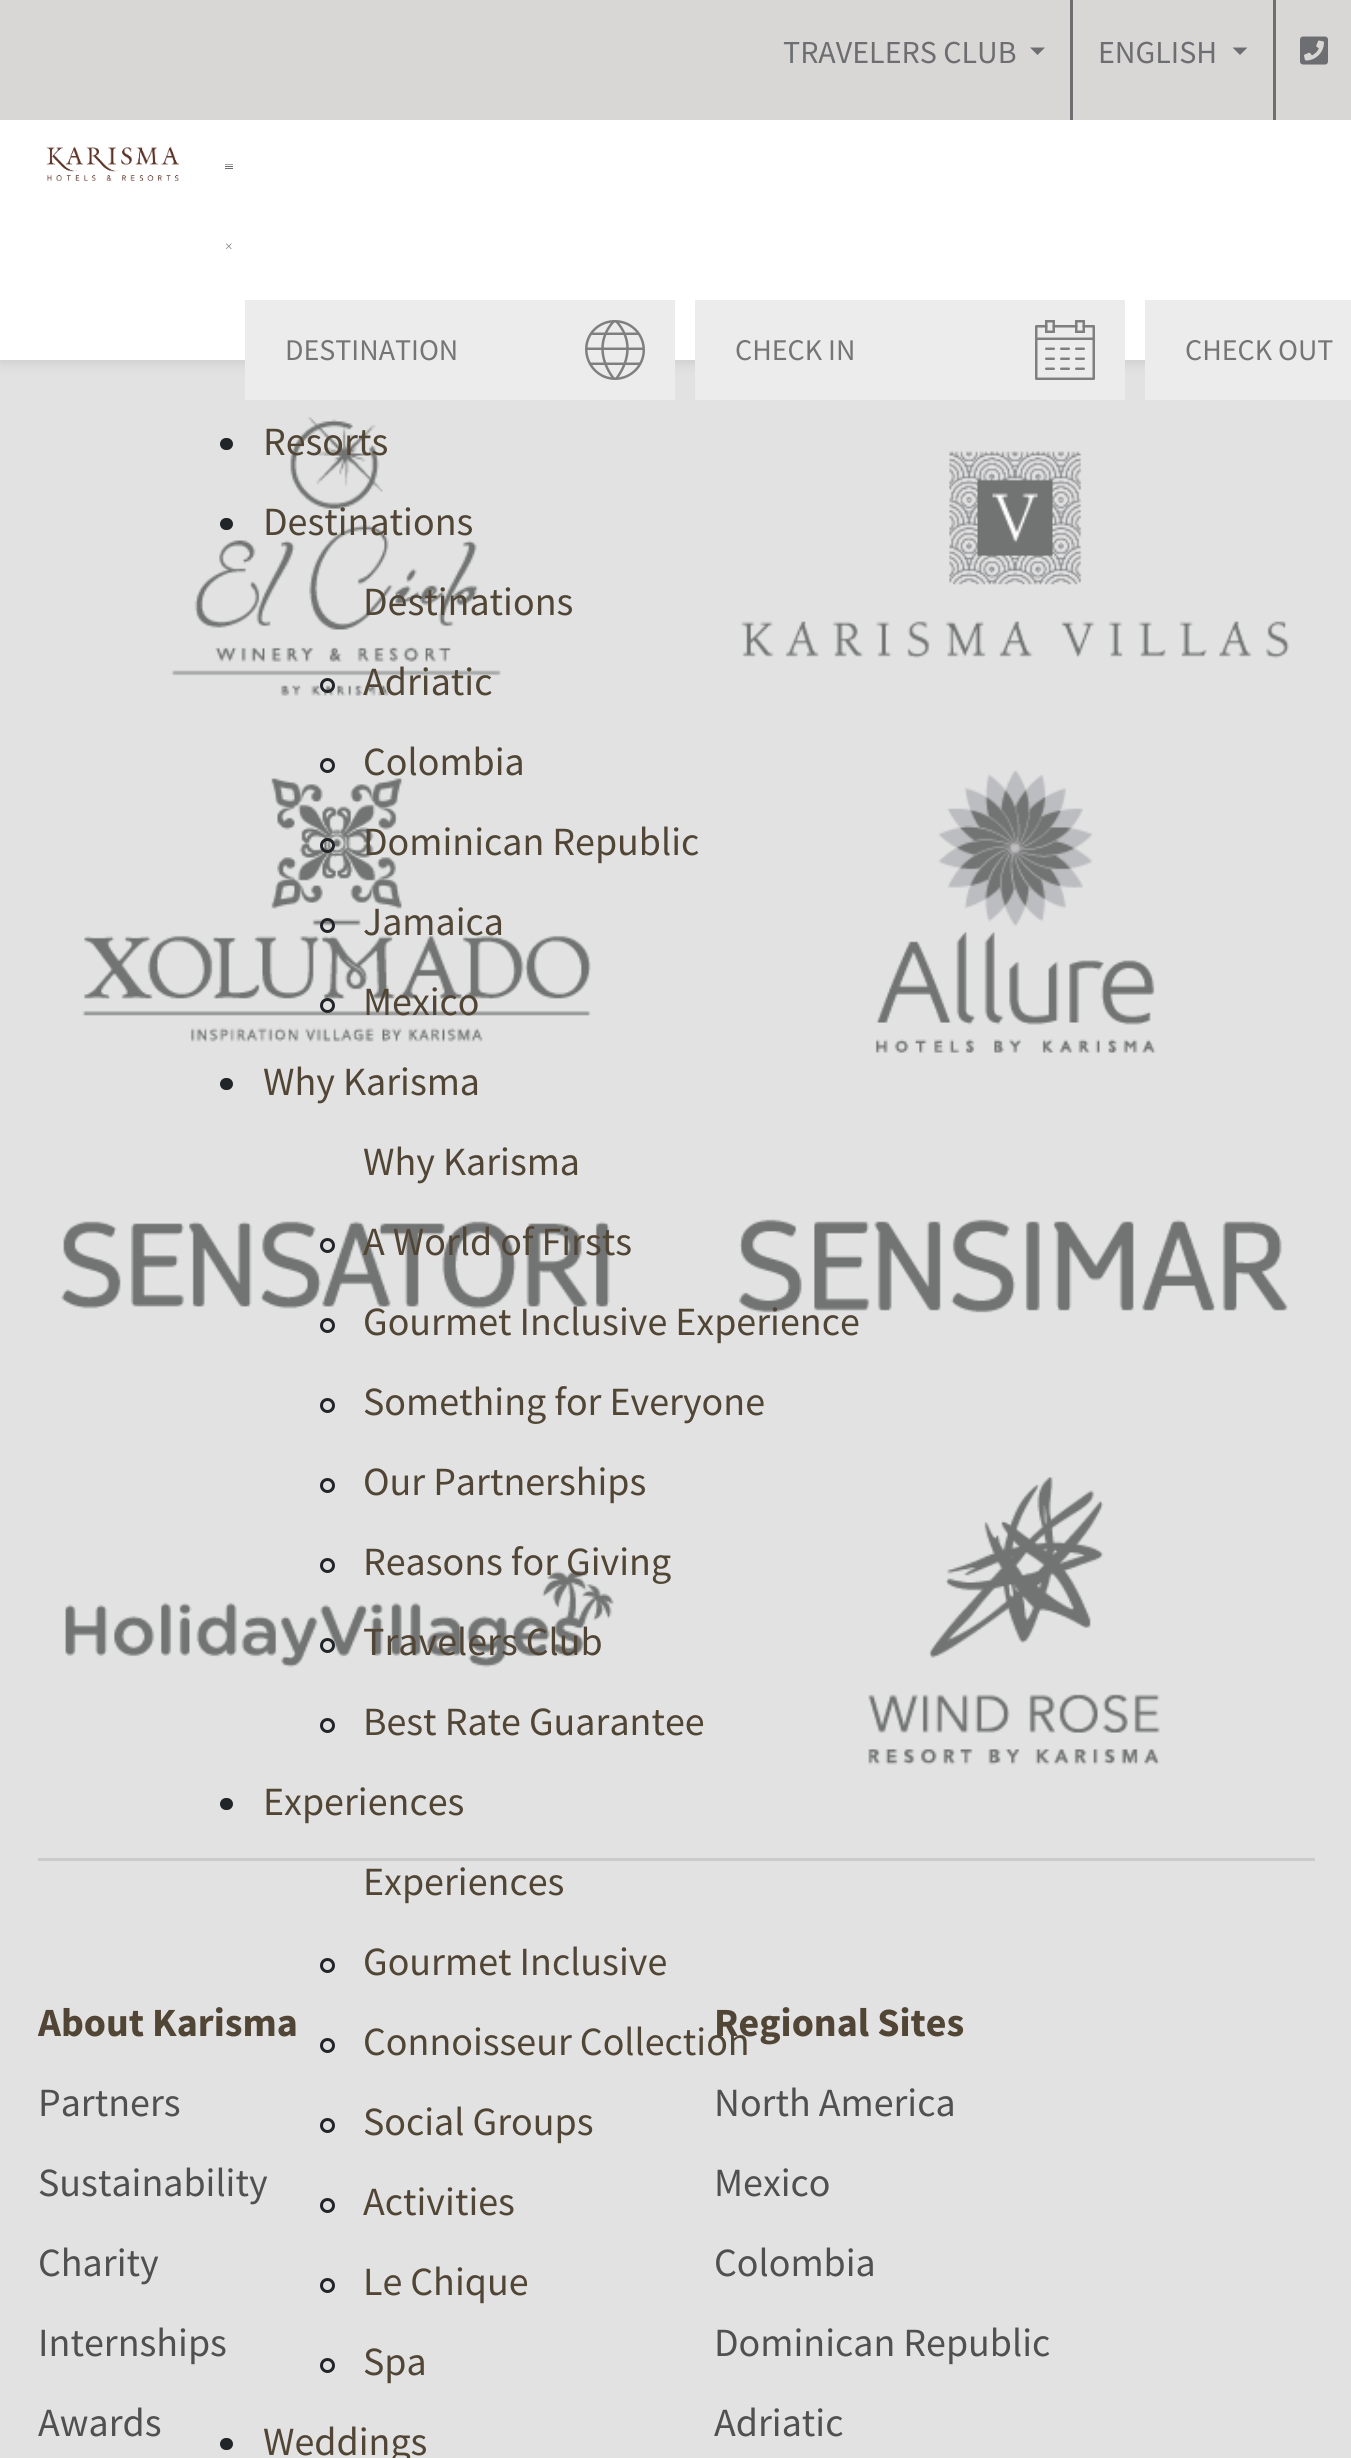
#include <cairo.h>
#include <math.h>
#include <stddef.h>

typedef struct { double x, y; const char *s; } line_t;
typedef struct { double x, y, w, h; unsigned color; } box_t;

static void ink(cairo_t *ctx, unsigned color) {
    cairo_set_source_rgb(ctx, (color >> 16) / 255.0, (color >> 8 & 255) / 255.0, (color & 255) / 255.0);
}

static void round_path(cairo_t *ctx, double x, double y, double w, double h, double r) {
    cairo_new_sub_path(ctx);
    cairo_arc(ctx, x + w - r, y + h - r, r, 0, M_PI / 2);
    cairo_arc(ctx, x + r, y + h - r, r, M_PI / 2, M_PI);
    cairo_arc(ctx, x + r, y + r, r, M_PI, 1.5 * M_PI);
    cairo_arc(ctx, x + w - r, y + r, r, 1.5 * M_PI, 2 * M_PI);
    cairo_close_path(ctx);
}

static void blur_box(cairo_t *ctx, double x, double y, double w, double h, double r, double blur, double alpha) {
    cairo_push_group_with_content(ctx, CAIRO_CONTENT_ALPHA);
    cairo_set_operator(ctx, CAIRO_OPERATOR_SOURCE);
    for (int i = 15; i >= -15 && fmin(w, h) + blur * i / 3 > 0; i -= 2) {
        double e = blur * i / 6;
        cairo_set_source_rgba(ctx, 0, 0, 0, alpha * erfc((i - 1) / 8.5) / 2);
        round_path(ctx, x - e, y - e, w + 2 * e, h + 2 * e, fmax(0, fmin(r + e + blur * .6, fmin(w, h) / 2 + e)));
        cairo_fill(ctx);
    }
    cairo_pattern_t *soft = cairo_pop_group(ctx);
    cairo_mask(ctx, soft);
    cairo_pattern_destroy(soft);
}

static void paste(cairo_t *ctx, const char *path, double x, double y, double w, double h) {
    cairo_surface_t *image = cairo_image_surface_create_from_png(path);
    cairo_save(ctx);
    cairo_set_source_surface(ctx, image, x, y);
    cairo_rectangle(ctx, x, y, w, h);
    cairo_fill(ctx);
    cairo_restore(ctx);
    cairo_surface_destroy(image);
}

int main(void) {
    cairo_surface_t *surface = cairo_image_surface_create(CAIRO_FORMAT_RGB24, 1351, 2458);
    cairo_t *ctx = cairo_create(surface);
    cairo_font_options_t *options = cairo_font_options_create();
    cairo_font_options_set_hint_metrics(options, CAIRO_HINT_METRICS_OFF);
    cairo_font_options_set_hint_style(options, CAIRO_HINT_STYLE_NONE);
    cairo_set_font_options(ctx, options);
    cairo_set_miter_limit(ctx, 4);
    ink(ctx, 0xE2E2E2);
    cairo_paint(ctx);
    ink(ctx, 0x000000);
    blur_box(ctx, 0, 3, 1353, 360, 0, 6, 0.1);
    ink(ctx, 0xD9D6D6);
    cairo_rectangle(ctx, 0, 0, 1351, 120);
    cairo_fill(ctx);
    cairo_select_font_face(ctx, "Source Sans Pro", CAIRO_FONT_SLANT_NORMAL, CAIRO_FONT_WEIGHT_NORMAL);
    cairo_set_font_size(ctx, 32);
    ink(ctx, 0x6D6E71);
    cairo_move_to(ctx, 783, 63);
    cairo_show_text(ctx, "TRAVELERS CLUB");
    cairo_new_path(ctx);
    cairo_move_to(ctx, 1030, 47.5);
    cairo_line_to(ctx, 1045, 47.5);
    cairo_line_to(ctx, 1037.5, 55);
    cairo_close_path(ctx);
    cairo_fill(ctx);
    cairo_rectangle(ctx, 1070, 0, 3, 120);
    cairo_fill(ctx);
    cairo_move_to(ctx, 1098, 63);
    cairo_show_text(ctx, "ENGLISH");
    cairo_new_path(ctx);
    cairo_move_to(ctx, 1232.5, 47.5);
    cairo_line_to(ctx, 1247.5, 47.5);
    cairo_line_to(ctx, 1240, 55);
    cairo_close_path(ctx);
    cairo_fill(ctx);
    cairo_rectangle(ctx, 1273, 0, 3, 120);
    cairo_fill(ctx);
    paste(ctx, "media/1.png", 1300, 36, 28, 29);
    ink(ctx, 0xFFFFFF);
    cairo_rectangle(ctx, 0, 120, 1351, 240);
    cairo_fill(ctx);
    paste(ctx, "media/2.png", 46, 146, 133, 35);
    {
        static const box_t items[] = {
            {225, 164, 8, 1, 0xA4A4A6},
            {225, 166, 8, 1, 0x6D6E71},
            {225, 168, 8, 1, 0x6D6E71},
        };
        for (size_t i = 0; i < sizeof items / sizeof *items; i++) {
            ink(ctx, items[i].color);
            cairo_rectangle(ctx, items[i].x, items[i].y, items[i].w, items[i].h);
            cairo_fill(ctx);
        }
    }
    paste(ctx, "media/3.png", 226, 243, 6, 6);
    ink(ctx, 0xECECED);
    cairo_rectangle(ctx, 245, 300, 430, 100);
    cairo_fill(ctx);
    cairo_set_font_size(ctx, 30);
    ink(ctx, 0x757575);
    cairo_move_to(ctx, 285, 360);
    cairo_show_text(ctx, "DESTINATION");
    paste(ctx, "media/4.png", 585, 320, 60, 60);
    ink(ctx, 0xECECED);
    cairo_rectangle(ctx, 695, 300, 430, 100);
    cairo_fill(ctx);
    ink(ctx, 0x757575);
    cairo_move_to(ctx, 735, 360);
    cairo_show_text(ctx, "CHECK IN");
    paste(ctx, "media/5.png", 1035, 320, 60, 60);
    ink(ctx, 0xECECED);
    cairo_rectangle(ctx, 1145, 300, 206, 100);
    cairo_fill(ctx);
    ink(ctx, 0x757575);
    cairo_move_to(ctx, 1185, 360);
    cairo_show_text(ctx, "CHECK OUT");
    paste(ctx, "media/6.png", 172, 416, 329, 280);
    ink(ctx, 0x212529);
    round_path(ctx, 220, 438, 13, 12, 6);
    cairo_fill(ctx);
    cairo_set_font_size(ctx, 40);
    ink(ctx, 0x514535);
    cairo_move_to(ctx, 263, 455);
    cairo_show_text(ctx, "Resorts");
    ink(ctx, 0x212529);
    round_path(ctx, 220, 518, 13, 12, 6);
    cairo_fill(ctx);
    ink(ctx, 0x514535);
    cairo_move_to(ctx, 263, 535);
    cairo_show_text(ctx, "Destinations");
    cairo_move_to(ctx, 363, 615);
    cairo_show_text(ctx, "Destinations");
    cairo_new_path(ctx);
    cairo_arc(ctx, 327.5, 685.5, 6, 0, 2 * M_PI);
    ink(ctx, 0x212529);
    cairo_set_line_width(ctx, 3);
    cairo_stroke(ctx);
    ink(ctx, 0x514535);
    cairo_move_to(ctx, 363, 695);
    cairo_show_text(ctx, "Adriatic");
    cairo_new_path(ctx);
    cairo_arc(ctx, 327.5, 765.5, 6, 0, 2 * M_PI);
    ink(ctx, 0x212529);
    cairo_stroke(ctx);
    ink(ctx, 0x514535);
    cairo_move_to(ctx, 363, 775);
    cairo_show_text(ctx, "Colombia");
    paste(ctx, "media/8.png", 82, 778, 509, 264);
    cairo_arc(ctx, 327.5, 845.5, 6, 0, 2 * M_PI);
    ink(ctx, 0x212529);
    cairo_stroke(ctx);
    ink(ctx, 0x514535);
    cairo_move_to(ctx, 363, 855);
    cairo_show_text(ctx, "Dominican Republic");
    cairo_new_path(ctx);
    cairo_arc(ctx, 327.5, 925.5, 6, 0, 2 * M_PI);
    ink(ctx, 0x212529);
    cairo_stroke(ctx);
    ink(ctx, 0x514535);
    cairo_move_to(ctx, 363, 935);
    cairo_show_text(ctx, "Jamaica");
    cairo_new_path(ctx);
    cairo_arc(ctx, 327.5, 1005.5, 6, 0, 2 * M_PI);
    ink(ctx, 0x212529);
    cairo_stroke(ctx);
    ink(ctx, 0x514535);
    cairo_move_to(ctx, 363, 1015);
    cairo_show_text(ctx, "Mexico");
    ink(ctx, 0x212529);
    round_path(ctx, 220, 1078, 13, 12, 6);
    cairo_fill(ctx);
    ink(ctx, 0x514535);
    cairo_move_to(ctx, 263, 1095);
    cairo_show_text(ctx, "Why Karisma");
    cairo_move_to(ctx, 363, 1175);
    cairo_show_text(ctx, "Why Karisma");
    paste(ctx, "media/10.png", 61, 1221, 549, 88);
    cairo_arc(ctx, 327.5, 1245.5, 6, 0, 2 * M_PI);
    ink(ctx, 0x212529);
    cairo_stroke(ctx);
    ink(ctx, 0x514535);
    cairo_move_to(ctx, 363, 1255);
    cairo_show_text(ctx, "A World of Firsts");
    cairo_new_path(ctx);
    cairo_arc(ctx, 327.5, 1325.5, 6, 0, 2 * M_PI);
    ink(ctx, 0x212529);
    cairo_stroke(ctx);
    paste(ctx, "media/11.png", 739, 1219, 549, 94);
    ink(ctx, 0x514535);
    cairo_move_to(ctx, 363, 1335);
    cairo_show_text(ctx, "Gourmet Inclusive Experience");
    cairo_new_path(ctx);
    cairo_arc(ctx, 327.5, 1405.5, 6, 0, 2 * M_PI);
    ink(ctx, 0x212529);
    cairo_stroke(ctx);
    ink(ctx, 0x514535);
    cairo_move_to(ctx, 363, 1415);
    cairo_show_text(ctx, "Something for Everyone");
    cairo_new_path(ctx);
    cairo_arc(ctx, 327.5, 1485.5, 6, 0, 2 * M_PI);
    ink(ctx, 0x212529);
    cairo_stroke(ctx);
    ink(ctx, 0x514535);
    cairo_move_to(ctx, 363, 1495);
    cairo_show_text(ctx, "Our Partnerships");
    paste(ctx, "media/12.png", 65, 1570, 549, 98);
    cairo_arc(ctx, 327.5, 1565.5, 6, 0, 2 * M_PI);
    ink(ctx, 0x212529);
    cairo_stroke(ctx);
    ink(ctx, 0x514535);
    cairo_move_to(ctx, 363, 1575);
    cairo_show_text(ctx, "Reasons for Giving");
    cairo_new_path(ctx);
    cairo_arc(ctx, 327.5, 1645.5, 6, 0, 2 * M_PI);
    ink(ctx, 0x212529);
    cairo_stroke(ctx);
    ink(ctx, 0x514535);
    cairo_move_to(ctx, 363, 1655);
    cairo_show_text(ctx, "Travelers Club");
    cairo_new_path(ctx);
    cairo_arc(ctx, 327.5, 1725.5, 6, 0, 2 * M_PI);
    ink(ctx, 0x212529);
    cairo_stroke(ctx);
    ink(ctx, 0x514535);
    cairo_move_to(ctx, 363, 1735);
    cairo_show_text(ctx, "Best Rate Guarantee");
    ink(ctx, 0x212529);
    round_path(ctx, 220, 1798, 13, 12, 6);
    cairo_fill(ctx);
    ink(ctx, 0x514535);
    cairo_move_to(ctx, 263, 1815);
    cairo_show_text(ctx, "Experiences");
    cairo_move_to(ctx, 363, 1895);
    cairo_show_text(ctx, "Experiences");
    cairo_new_path(ctx);
    cairo_arc(ctx, 327.5, 1965.5, 6, 0, 2 * M_PI);
    ink(ctx, 0x212529);
    cairo_stroke(ctx);
    ink(ctx, 0x514535);
    cairo_move_to(ctx, 363, 1975);
    cairo_show_text(ctx, "Gourmet Inclusive");
    cairo_new_path(ctx);
    cairo_arc(ctx, 327.5, 2045.5, 6, 0, 2 * M_PI);
    ink(ctx, 0x212529);
    cairo_stroke(ctx);
    cairo_select_font_face(ctx, "Source Sans Pro", CAIRO_FONT_SLANT_NORMAL, CAIRO_FONT_WEIGHT_BOLD);
    ink(ctx, 0x514535);
    cairo_move_to(ctx, 714, 2036);
    cairo_show_text(ctx, "Regional Sites");
    cairo_select_font_face(ctx, "Source Sans Pro", CAIRO_FONT_SLANT_NORMAL, CAIRO_FONT_WEIGHT_NORMAL);
    cairo_move_to(ctx, 363, 2055);
    cairo_show_text(ctx, "Connoisseur Collection");
    cairo_new_path(ctx);
    cairo_arc(ctx, 327.5, 2125.5, 6, 0, 2 * M_PI);
    ink(ctx, 0x212529);
    cairo_stroke(ctx);
    ink(ctx, 0x514535);
    cairo_move_to(ctx, 363, 2135);
    cairo_show_text(ctx, "Social Groups");
    cairo_new_path(ctx);
    cairo_arc(ctx, 327.5, 2205.5, 6, 0, 2 * M_PI);
    ink(ctx, 0x212529);
    cairo_stroke(ctx);
    ink(ctx, 0x514535);
    cairo_move_to(ctx, 363, 2215);
    cairo_show_text(ctx, "Activities");
    cairo_new_path(ctx);
    cairo_arc(ctx, 327.5, 2285.5, 6, 0, 2 * M_PI);
    ink(ctx, 0x212529);
    cairo_stroke(ctx);
    ink(ctx, 0x514535);
    cairo_move_to(ctx, 363, 2295);
    cairo_show_text(ctx, "Le Chique");
    cairo_new_path(ctx);
    cairo_arc(ctx, 327.5, 2365.5, 6, 0, 2 * M_PI);
    ink(ctx, 0x212529);
    cairo_stroke(ctx);
    ink(ctx, 0x514535);
    cairo_move_to(ctx, 363, 2375);
    cairo_show_text(ctx, "Spa");
    ink(ctx, 0x212529);
    round_path(ctx, 220, 2438, 13, 12, 6);
    cairo_fill(ctx);
    ink(ctx, 0x514535);
    cairo_move_to(ctx, 263, 2455);
    cairo_show_text(ctx, "Weddings");
    paste(ctx, "media/7.png", 741, 451, 549, 208);
    paste(ctx, "media/9.png", 875, 770, 281, 283);
    paste(ctx, "media/13.png", 868, 1477, 292, 288);
    ink(ctx, 0xCBCBCB);
    cairo_rectangle(ctx, 38, 1858, 1277, 3);
    cairo_fill(ctx);
    cairo_select_font_face(ctx, "Source Sans Pro", CAIRO_FONT_SLANT_NORMAL, CAIRO_FONT_WEIGHT_BOLD);
    ink(ctx, 0x514535);
    cairo_move_to(ctx, 38, 2036);
    cairo_show_text(ctx, "About Karisma");
    cairo_select_font_face(ctx, "Source Sans Pro", CAIRO_FONT_SLANT_NORMAL, CAIRO_FONT_WEIGHT_NORMAL);
    ink(ctx, 0x505050);
    {
        static const line_t items[] = {
            {38, 2116, "Partners"},
            {38, 2196, "Sustainability"},
            {38, 2276, "Charity"},
            {38, 2356, "Internships"},
            {38, 2436, "Awards"},
            {714, 2116, "North America"},
            {714, 2196, "Mexico"},
            {714, 2276, "Colombia"},
            {714, 2356, "Dominican Republic"},
            {714, 2436, "Adriatic"},
        };
        for (size_t i = 0; i < sizeof items / sizeof *items; i++) {
            cairo_move_to(ctx, items[i].x, items[i].y);
            cairo_show_text(ctx, items[i].s);
        }
    }
    cairo_surface_write_to_png(surface, "image.png");
    cairo_font_options_destroy(options);
    cairo_destroy(ctx);
    cairo_surface_destroy(surface);
    return 0;
}
